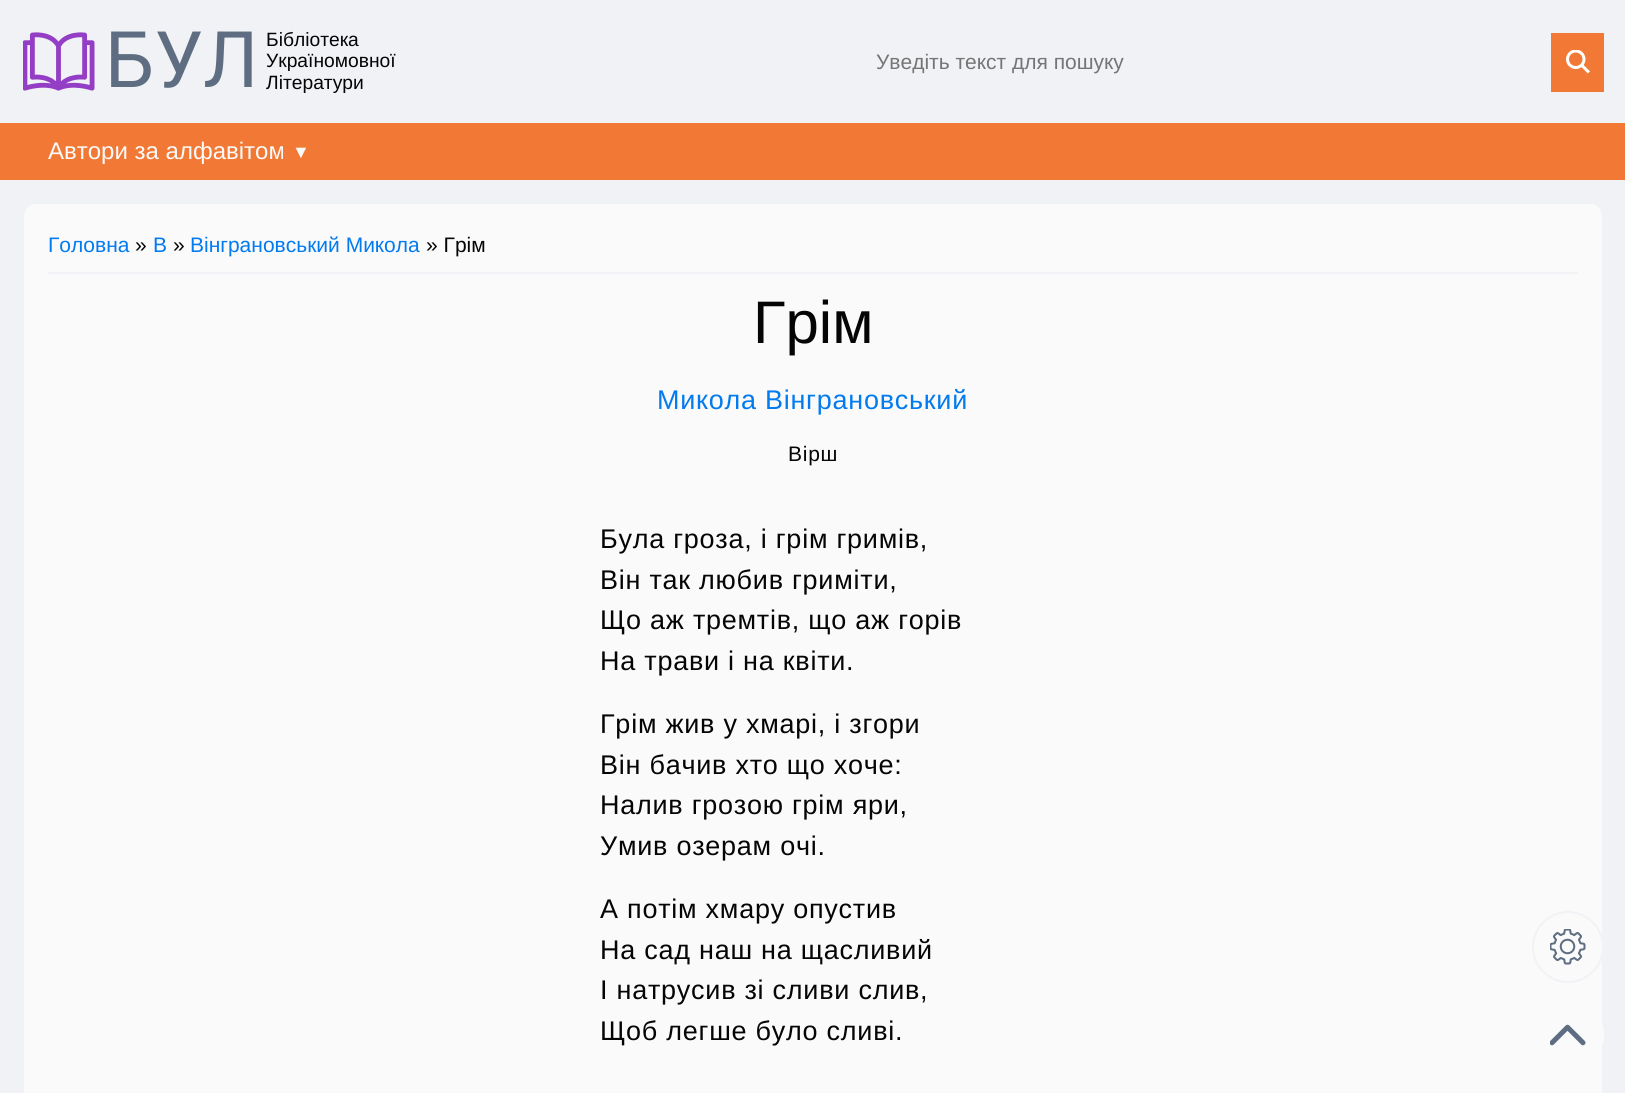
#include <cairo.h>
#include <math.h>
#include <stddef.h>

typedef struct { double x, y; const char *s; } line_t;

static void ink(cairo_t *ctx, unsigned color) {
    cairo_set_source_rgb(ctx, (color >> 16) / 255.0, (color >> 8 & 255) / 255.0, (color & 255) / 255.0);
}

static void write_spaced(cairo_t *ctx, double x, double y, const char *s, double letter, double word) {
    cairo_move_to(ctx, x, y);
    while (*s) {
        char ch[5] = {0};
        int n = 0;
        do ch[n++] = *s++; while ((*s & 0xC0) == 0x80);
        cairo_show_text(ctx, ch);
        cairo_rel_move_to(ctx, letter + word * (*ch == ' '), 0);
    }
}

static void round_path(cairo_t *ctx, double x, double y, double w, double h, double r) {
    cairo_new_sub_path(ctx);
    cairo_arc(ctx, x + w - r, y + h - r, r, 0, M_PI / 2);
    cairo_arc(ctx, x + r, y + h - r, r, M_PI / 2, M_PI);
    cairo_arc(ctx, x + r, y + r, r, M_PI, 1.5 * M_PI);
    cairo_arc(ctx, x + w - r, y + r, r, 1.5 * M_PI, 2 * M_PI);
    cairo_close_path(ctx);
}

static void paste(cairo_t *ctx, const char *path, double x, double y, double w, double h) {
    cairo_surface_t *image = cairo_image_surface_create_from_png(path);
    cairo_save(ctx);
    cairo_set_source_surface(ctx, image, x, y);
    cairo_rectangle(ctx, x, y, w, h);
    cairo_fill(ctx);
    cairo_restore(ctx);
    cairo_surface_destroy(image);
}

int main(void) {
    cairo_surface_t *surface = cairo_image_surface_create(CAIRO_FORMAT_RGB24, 1625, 1093);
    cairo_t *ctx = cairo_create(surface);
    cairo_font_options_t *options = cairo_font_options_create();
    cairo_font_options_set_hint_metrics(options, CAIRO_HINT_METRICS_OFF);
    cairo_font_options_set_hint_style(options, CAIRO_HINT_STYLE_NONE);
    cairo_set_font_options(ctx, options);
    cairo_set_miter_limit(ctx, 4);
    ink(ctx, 0xF0F2F5);
    cairo_paint(ctx);
    paste(ctx, "media/1.png", 23, 32, 72, 59);
    cairo_select_font_face(ctx, "Roboto", CAIRO_FONT_SLANT_NORMAL, CAIRO_FONT_WEIGHT_NORMAL);
    cairo_set_font_size(ctx, 78);
    ink(ctx, 0x5E6D81);
    cairo_move_to(ctx, 105, 87);
    cairo_show_text(ctx, "БУЛ");
    cairo_select_font_face(ctx, "Liberation Sans", CAIRO_FONT_SLANT_NORMAL, CAIRO_FONT_WEIGHT_NORMAL);
    cairo_set_font_size(ctx, 19.25);
    ink(ctx, 0x050505);
    {
        static const line_t items[] = {
            {266, 46, "Бібліотека"},
            {266, 67, "Україномовної"},
            {266, 89, "Літератури"},
        };
        for (size_t i = 0; i < sizeof items / sizeof *items; i++) {
            cairo_move_to(ctx, items[i].x, items[i].y);
            cairo_show_text(ctx, items[i].s);
        }
    }
    cairo_set_font_size(ctx, 21);
    ink(ctx, 0x757575);
    cairo_move_to(ctx, 876, 69);
    cairo_show_text(ctx, "Уведіть текст для пошуку");
    ink(ctx, 0xF27935);
    cairo_rectangle(ctx, 1551, 33, 53, 59);
    cairo_fill(ctx);
    paste(ctx, "media/2.png", 1566, 50, 24, 24);
    cairo_rectangle(ctx, 0, 123, 1625, 57);
    cairo_fill(ctx);
    cairo_set_font_size(ctx, 24);
    ink(ctx, 0xFAFAFA);
    cairo_move_to(ctx, 48, 159);
    cairo_show_text(ctx, "Автори за алфавітом");
    cairo_set_font_size(ctx, 18);
    cairo_move_to(ctx, 292, 158);
    cairo_show_text(ctx, "▼");
    round_path(ctx, 24, 204, 1578, 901, 12);
    cairo_fill(ctx);
    ink(ctx, 0xF0F2F5);
    cairo_rectangle(ctx, 48, 272, 1530, 2);
    cairo_fill(ctx);
    cairo_set_font_size(ctx, 21);
    ink(ctx, 0x027AF0);
    cairo_move_to(ctx, 48, 252);
    cairo_show_text(ctx, "Головна");
    ink(ctx, 0x050505);
    cairo_move_to(ctx, 135, 252);
    cairo_show_text(ctx, "»");
    ink(ctx, 0x027AF0);
    cairo_move_to(ctx, 153, 252);
    cairo_show_text(ctx, "В");
    ink(ctx, 0x050505);
    cairo_move_to(ctx, 173, 252);
    cairo_show_text(ctx, "»");
    ink(ctx, 0x027AF0);
    cairo_move_to(ctx, 190, 252);
    cairo_show_text(ctx, "Вінграновський Микола");
    ink(ctx, 0x050505);
    cairo_move_to(ctx, 426, 252);
    cairo_show_text(ctx, "» Грім");
    cairo_set_font_size(ctx, 60);
    cairo_move_to(ctx, 753, 343);
    cairo_show_text(ctx, "Грім");
    cairo_set_font_size(ctx, 27);
    ink(ctx, 0x027AF0);
    write_spaced(ctx, 657, 409, "Микола Вінграновський", 0.75, 0);
    cairo_set_font_size(ctx, 21);
    ink(ctx, 0x050505);
    write_spaced(ctx, 788, 461, "Вірш", 0.75, 0);
    cairo_set_font_size(ctx, 27);
    {
        static const line_t items[] = {
            {600, 548, "Була гроза, і грім гримів,"},
            {600, 589, "Він так любив гриміти,"},
            {600, 629, "Що аж тремтів, що аж горів"},
            {600, 670, "На трави і на квіти."},
            {600, 733, "Грім жив у хмарі, і згори"},
            {600, 774, "Він бачив хто що хоче:"},
            {600, 814, "Налив грозою грім яри,"},
            {600, 855, "Умив озерам очі."},
            {600, 918, "А потім хмару опустив"},
            {600, 959, "На сад наш на щасливий"},
            {600, 999, "І натрусив зі сливи слив,"},
            {600, 1040, "Щоб легше було сливі."},
        };
        for (size_t i = 0; i < sizeof items / sizeof *items; i++) {
            write_spaced(ctx, items[i].x, items[i].y, items[i].s, 0.75, 0);
        }
    }
    ink(ctx, 0xFAFAFA);
    cairo_new_path(ctx);
    cairo_arc(ctx, 1568, 947, 36, 0, 2 * M_PI);
    cairo_fill(ctx);
    paste(ctx, "media/3.png", 1550, 929, 36, 36);
    cairo_arc(ctx, 1568, 947, 35, 0, 2 * M_PI);
    ink(ctx, 0xF0F2F5);
    cairo_stroke(ctx);
    ink(ctx, 0xFAFAFA);
    cairo_arc(ctx, 1568, 1035, 36, 0, 2 * M_PI);
    cairo_fill(ctx);
    paste(ctx, "media/4.png", 1550, 1024, 36, 22);
    cairo_surface_write_to_png(surface, "image.png");
    cairo_font_options_destroy(options);
    cairo_destroy(ctx);
    cairo_surface_destroy(surface);
    return 0;
}
